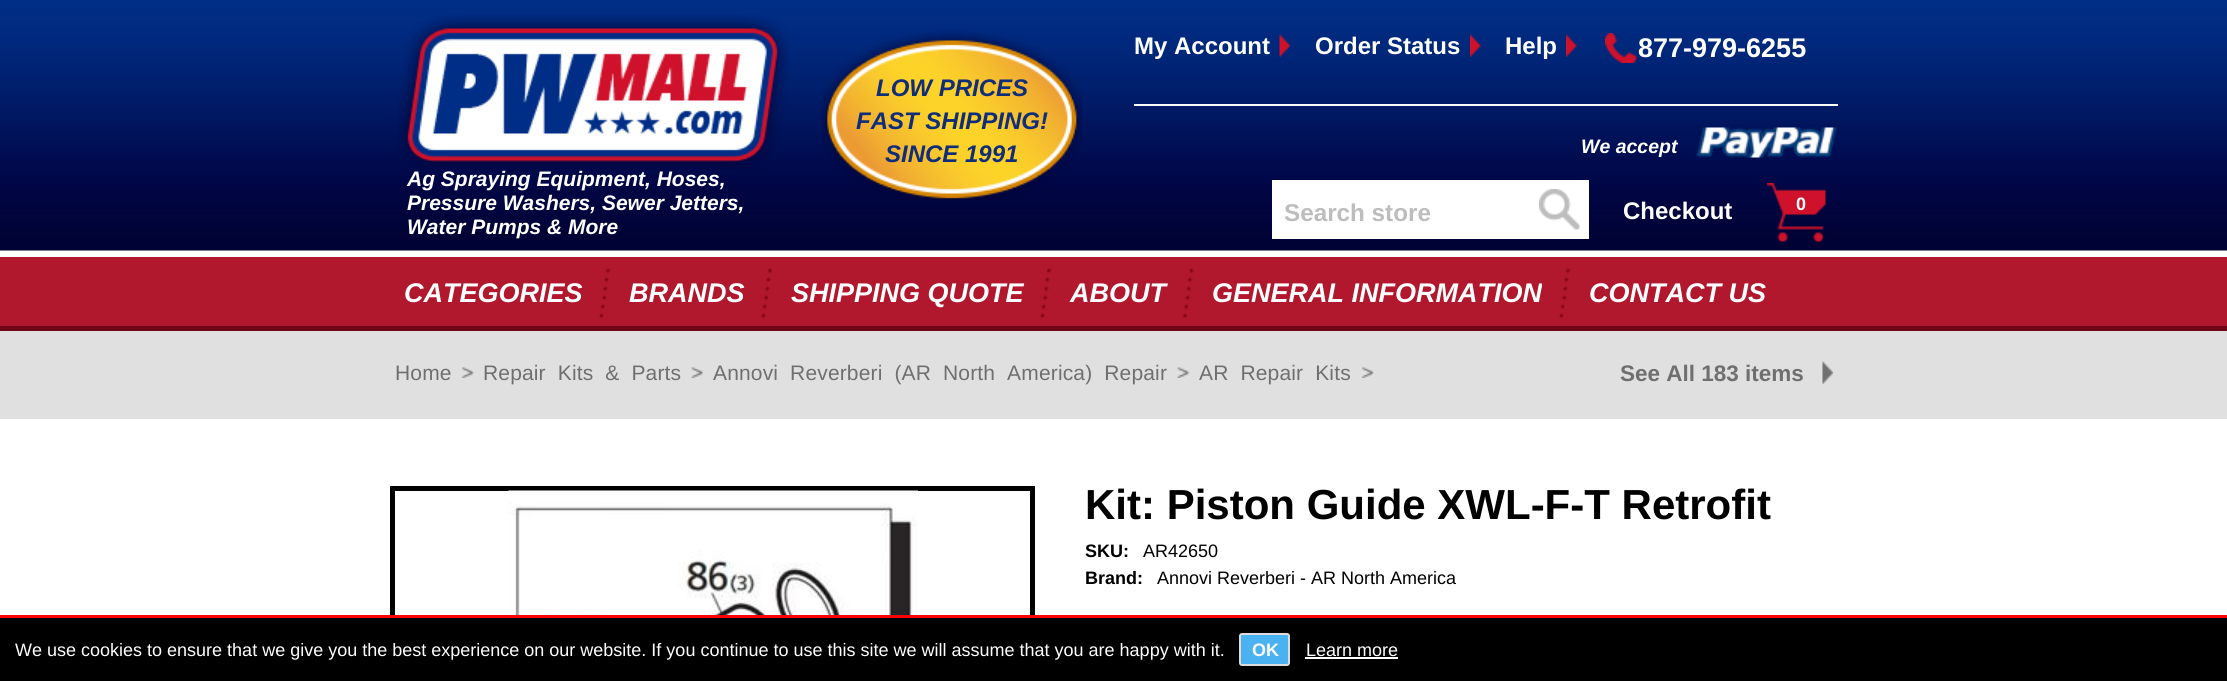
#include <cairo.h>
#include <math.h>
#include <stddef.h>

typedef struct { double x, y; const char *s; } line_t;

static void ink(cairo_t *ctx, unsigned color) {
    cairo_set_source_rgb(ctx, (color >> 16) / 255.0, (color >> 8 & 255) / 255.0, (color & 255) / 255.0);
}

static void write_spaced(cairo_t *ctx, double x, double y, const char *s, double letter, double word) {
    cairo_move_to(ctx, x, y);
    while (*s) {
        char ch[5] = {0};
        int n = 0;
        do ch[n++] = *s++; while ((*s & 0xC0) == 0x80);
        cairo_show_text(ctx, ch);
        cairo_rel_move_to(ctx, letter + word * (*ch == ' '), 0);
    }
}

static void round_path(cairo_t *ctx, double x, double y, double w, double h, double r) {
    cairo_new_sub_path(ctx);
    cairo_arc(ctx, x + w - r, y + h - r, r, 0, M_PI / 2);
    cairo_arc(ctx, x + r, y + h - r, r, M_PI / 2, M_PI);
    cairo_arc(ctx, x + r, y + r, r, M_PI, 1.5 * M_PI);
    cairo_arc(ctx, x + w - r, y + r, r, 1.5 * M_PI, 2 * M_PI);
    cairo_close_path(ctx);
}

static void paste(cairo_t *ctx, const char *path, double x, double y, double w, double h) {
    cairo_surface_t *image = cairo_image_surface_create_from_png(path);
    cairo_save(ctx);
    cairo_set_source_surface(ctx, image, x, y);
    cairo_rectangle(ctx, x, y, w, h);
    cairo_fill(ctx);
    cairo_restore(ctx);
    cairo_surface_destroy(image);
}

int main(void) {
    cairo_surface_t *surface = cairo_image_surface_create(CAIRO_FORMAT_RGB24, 2227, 681);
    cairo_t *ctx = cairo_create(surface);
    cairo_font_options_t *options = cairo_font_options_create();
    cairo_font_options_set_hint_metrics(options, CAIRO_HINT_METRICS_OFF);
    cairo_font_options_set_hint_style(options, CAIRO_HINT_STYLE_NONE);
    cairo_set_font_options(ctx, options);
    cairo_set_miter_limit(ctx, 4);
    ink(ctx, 0xFFFFFF);
    cairo_paint(ctx);
    paste(ctx, "media/1.png", 0, 0, 2227, 251);
    paste(ctx, "media/2.png", 398, 15, 391, 154);
    paste(ctx, "media/3.png", 821, 30, 262, 170);
    cairo_select_font_face(ctx, "Liberation Sans", CAIRO_FONT_SLANT_ITALIC, CAIRO_FONT_WEIGHT_BOLD);
    cairo_set_font_size(ctx, 24);
    ink(ctx, 0x102D7A);
    {
        static const line_t items[] = {
            {876, 96, "LOW PRICES"},
            {856, 129, "FAST SHIPPING!"},
            {885, 162, "SINCE 1991"},
        };
        for (size_t i = 0; i < sizeof items / sizeof *items; i++) {
            cairo_move_to(ctx, items[i].x, items[i].y);
            cairo_show_text(ctx, items[i].s);
        }
    }
    cairo_set_font_size(ctx, 21);
    ink(ctx, 0xFFFFFF);
    {
        static const line_t items[] = {
            {407, 186, "Ag Spraying Equipment, Hoses,"},
            {407, 210, "Pressure Washers, Sewer Jetters,"},
            {407, 234, "Water Pumps & More"},
        };
        for (size_t i = 0; i < sizeof items / sizeof *items; i++) {
            cairo_move_to(ctx, items[i].x, items[i].y);
            cairo_show_text(ctx, items[i].s);
        }
    }
    cairo_rectangle(ctx, 1134, 104, 704, 2);
    cairo_fill(ctx);
    cairo_select_font_face(ctx, "Liberation Sans", CAIRO_FONT_SLANT_NORMAL, CAIRO_FONT_WEIGHT_BOLD);
    cairo_set_font_size(ctx, 24);
    cairo_move_to(ctx, 1134, 54);
    cairo_show_text(ctx, "My Account");
    paste(ctx, "media/4.png", 1279, 34, 11, 23);
    cairo_move_to(ctx, 1315, 54);
    cairo_show_text(ctx, "Order Status");
    paste(ctx, "media/5.png", 1470, 34, 11, 23);
    cairo_move_to(ctx, 1505, 54);
    cairo_show_text(ctx, "Help");
    paste(ctx, "media/6.png", 1566, 34, 11, 23);
    paste(ctx, "media/7.png", 1605, 33, 32, 30);
    cairo_set_font_size(ctx, 27);
    cairo_move_to(ctx, 1638, 57);
    cairo_show_text(ctx, "877-979-6255");
    paste(ctx, "media/8.png", 1696, 127, 141, 31);
    cairo_select_font_face(ctx, "Liberation Sans", CAIRO_FONT_SLANT_ITALIC, CAIRO_FONT_WEIGHT_BOLD);
    cairo_set_font_size(ctx, 19.5);
    cairo_move_to(ctx, 1581, 153);
    cairo_show_text(ctx, "We accept");
    cairo_rectangle(ctx, 1272, 180, 317, 59);
    cairo_fill(ctx);
    cairo_select_font_face(ctx, "Liberation Sans", CAIRO_FONT_SLANT_NORMAL, CAIRO_FONT_WEIGHT_BOLD);
    cairo_set_font_size(ctx, 24.25);
    ink(ctx, 0xBDBDBD);
    cairo_move_to(ctx, 1284, 221);
    cairo_show_text(ctx, "Search store");
    paste(ctx, "media/9.png", 1539, 189, 41, 41);
    cairo_set_font_size(ctx, 24);
    ink(ctx, 0xFFFFFF);
    cairo_move_to(ctx, 1623, 219);
    cairo_show_text(ctx, "Checkout");
    paste(ctx, "media/10.png", 1767, 183, 59, 59);
    cairo_set_font_size(ctx, 18);
    cairo_move_to(ctx, 1796, 210);
    cairo_show_text(ctx, "0");
    ink(ctx, 0xB1182E);
    cairo_rectangle(ctx, 0, 257, 2227, 69);
    cairo_fill(ctx);
    ink(ctx, 0x6E0615);
    cairo_rectangle(ctx, 0, 326, 2227, 5);
    cairo_fill(ctx);
    paste(ctx, "media/11.png", 599, 268, 12, 50);
    cairo_select_font_face(ctx, "Liberation Sans", CAIRO_FONT_SLANT_ITALIC, CAIRO_FONT_WEIGHT_BOLD);
    cairo_set_font_size(ctx, 27);
    ink(ctx, 0xFFFFFF);
    cairo_move_to(ctx, 404, 302);
    cairo_show_text(ctx, "CATEGORIES");
    paste(ctx, "media/12.png", 761, 268, 12, 50);
    cairo_move_to(ctx, 629, 302);
    cairo_show_text(ctx, "BRANDS");
    paste(ctx, "media/12.png", 1040, 268, 12, 50);
    cairo_move_to(ctx, 791, 302);
    cairo_show_text(ctx, "SHIPPING QUOTE");
    paste(ctx, "media/13.png", 1182, 268, 12, 50);
    cairo_move_to(ctx, 1070, 302);
    cairo_show_text(ctx, "ABOUT");
    paste(ctx, "media/12.png", 1559, 268, 12, 50);
    cairo_move_to(ctx, 1212, 302);
    cairo_show_text(ctx, "GENERAL INFORMATION");
    cairo_move_to(ctx, 1589, 302);
    cairo_show_text(ctx, "CONTACT US");
    ink(ctx, 0xE0E0E0);
    cairo_rectangle(ctx, 0, 331, 2227, 88);
    cairo_fill(ctx);
    paste(ctx, "media/14.png", 462, 367, 12, 11);
    cairo_select_font_face(ctx, "Liberation Sans", CAIRO_FONT_SLANT_NORMAL, CAIRO_FONT_WEIGHT_NORMAL);
    cairo_set_font_size(ctx, 21);
    ink(ctx, 0x6F6F6F);
    write_spaced(ctx, 395, 380, "Home", 0.15, 0);
    paste(ctx, "media/15.png", 691, 367, 13, 11);
    write_spaced(ctx, 483, 380, "Repair Kits & Parts", 0.15, 6);
    paste(ctx, "media/15.png", 1177, 367, 13, 11);
    write_spaced(ctx, 713, 380, "Annovi Reverberi (AR North America) Repair", 0.15, 6);
    paste(ctx, "media/14.png", 1362, 367, 12, 11);
    write_spaced(ctx, 1199, 380, "AR Repair Kits", 0.15, 6);
    paste(ctx, "media/16.png", 1822, 361, 11, 23);
    cairo_select_font_face(ctx, "Liberation Sans", CAIRO_FONT_SLANT_NORMAL, CAIRO_FONT_WEIGHT_BOLD);
    cairo_set_font_size(ctx, 22.5);
    cairo_move_to(ctx, 1620, 381);
    cairo_show_text(ctx, "See All 183 items");
    cairo_rectangle(ctx, 392.5, 488.5, 640, 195);
    ink(ctx, 0x000000);
    cairo_set_line_width(ctx, 5);
    cairo_stroke(ctx);
    paste(ctx, "media/17.png", 508, 490, 410, 125);
    cairo_set_font_size(ctx, 42);
    cairo_move_to(ctx, 1085, 519);
    cairo_show_text(ctx, "Kit: Piston Guide XWL-F-T Retrofit");
    cairo_set_font_size(ctx, 18);
    cairo_move_to(ctx, 1085, 557);
    cairo_show_text(ctx, "SKU:");
    cairo_select_font_face(ctx, "Liberation Sans", CAIRO_FONT_SLANT_NORMAL, CAIRO_FONT_WEIGHT_NORMAL);
    cairo_move_to(ctx, 1143, 557);
    cairo_show_text(ctx, "AR42650");
    cairo_select_font_face(ctx, "Liberation Sans", CAIRO_FONT_SLANT_NORMAL, CAIRO_FONT_WEIGHT_BOLD);
    cairo_move_to(ctx, 1085, 584);
    cairo_show_text(ctx, "Brand:");
    cairo_select_font_face(ctx, "Liberation Sans", CAIRO_FONT_SLANT_NORMAL, CAIRO_FONT_WEIGHT_NORMAL);
    cairo_move_to(ctx, 1157, 584);
    cairo_show_text(ctx, "Annovi Reverberi - AR North America");
    cairo_rectangle(ctx, 0, 618, 2227, 63);
    cairo_fill(ctx);
    ink(ctx, 0xFF0000);
    cairo_rectangle(ctx, 0, 615, 2227, 3);
    cairo_fill(ctx);
    ink(ctx, 0xFFFFFF);
    cairo_move_to(ctx, 15, 656);
    cairo_show_text(ctx, "We use cookies to ensure that we give you the best experience on our website. If you continue to use this site we will assume that you are happy with it.");
    ink(ctx, 0x4AB2F1);
    round_path(ctx, 1240, 634, 49, 31, 2);
    cairo_fill_preserve(ctx);
    ink(ctx, 0xDCDCDC);
    cairo_set_line_width(ctx, 2);
    cairo_stroke(ctx);
    cairo_select_font_face(ctx, "Liberation Sans", CAIRO_FONT_SLANT_NORMAL, CAIRO_FONT_WEIGHT_BOLD);
    ink(ctx, 0xFFFFFF);
    cairo_move_to(ctx, 1252, 656);
    cairo_show_text(ctx, "OK");
    cairo_select_font_face(ctx, "Liberation Sans", CAIRO_FONT_SLANT_NORMAL, CAIRO_FONT_WEIGHT_NORMAL);
    cairo_move_to(ctx, 1306, 656);
    cairo_show_text(ctx, "Learn more");
    cairo_rectangle(ctx, 1305, 657, 93, 2);
    cairo_fill(ctx);
    cairo_surface_write_to_png(surface, "image.png");
    cairo_font_options_destroy(options);
    cairo_destroy(ctx);
    cairo_surface_destroy(surface);
    return 0;
}
